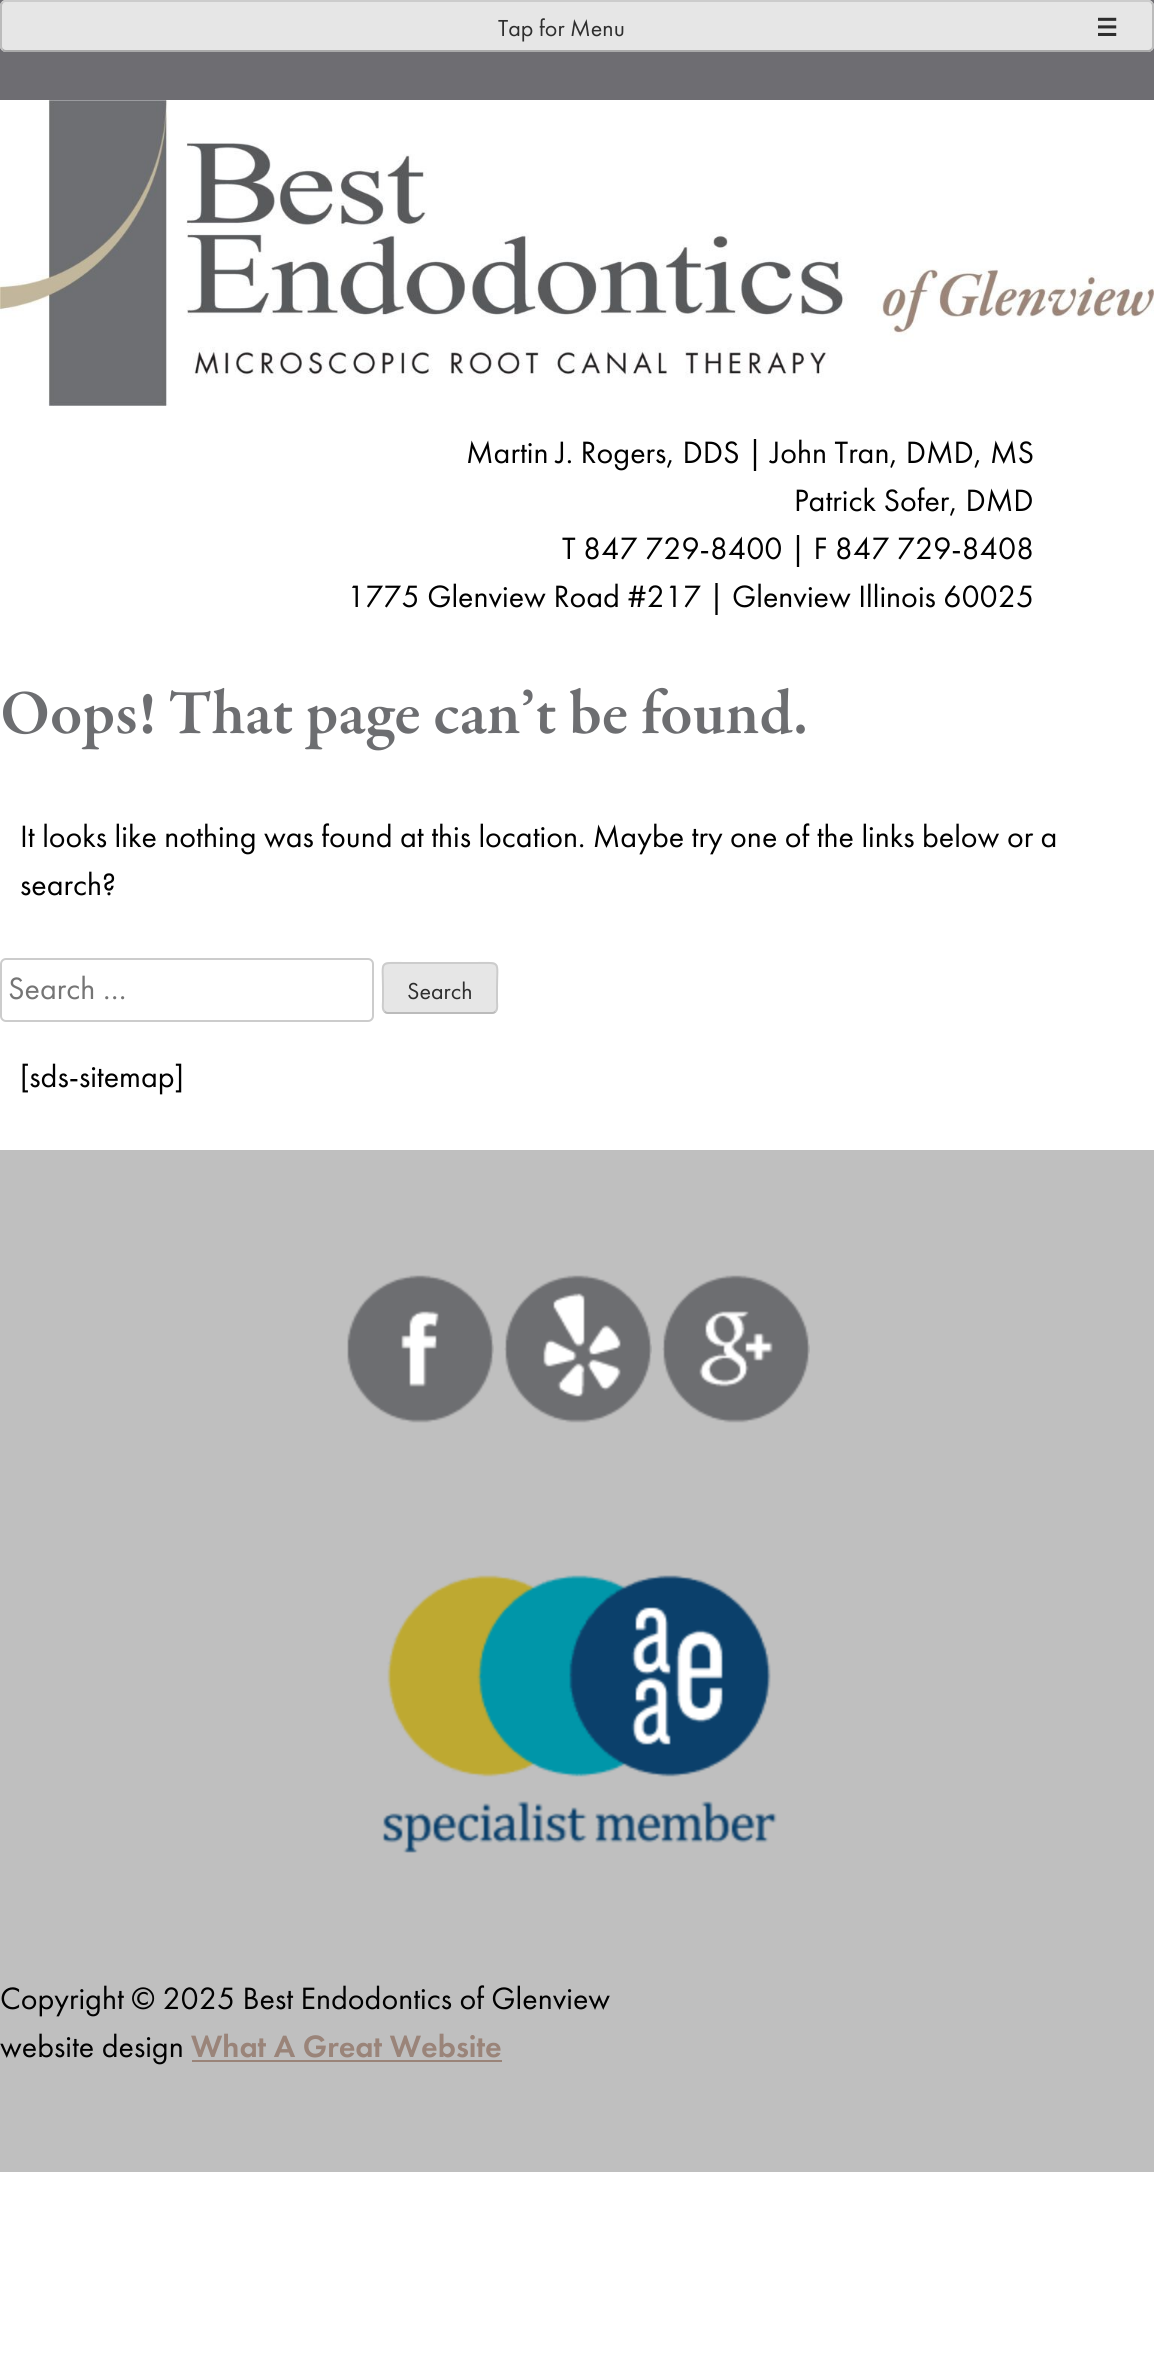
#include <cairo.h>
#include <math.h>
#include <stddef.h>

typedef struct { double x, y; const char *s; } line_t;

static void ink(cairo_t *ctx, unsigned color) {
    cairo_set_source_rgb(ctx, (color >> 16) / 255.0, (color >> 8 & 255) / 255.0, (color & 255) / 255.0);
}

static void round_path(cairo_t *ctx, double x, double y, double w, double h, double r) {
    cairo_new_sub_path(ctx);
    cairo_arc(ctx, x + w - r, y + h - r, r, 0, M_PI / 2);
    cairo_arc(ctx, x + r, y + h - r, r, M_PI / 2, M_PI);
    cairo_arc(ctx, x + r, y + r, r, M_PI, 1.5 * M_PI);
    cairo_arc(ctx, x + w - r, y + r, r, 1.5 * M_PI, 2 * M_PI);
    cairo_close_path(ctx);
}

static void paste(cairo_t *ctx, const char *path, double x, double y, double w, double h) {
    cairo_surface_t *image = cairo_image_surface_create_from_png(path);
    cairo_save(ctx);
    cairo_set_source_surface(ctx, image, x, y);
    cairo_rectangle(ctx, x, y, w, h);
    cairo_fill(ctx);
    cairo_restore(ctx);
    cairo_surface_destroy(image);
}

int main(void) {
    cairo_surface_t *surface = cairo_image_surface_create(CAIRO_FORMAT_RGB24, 1154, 2360);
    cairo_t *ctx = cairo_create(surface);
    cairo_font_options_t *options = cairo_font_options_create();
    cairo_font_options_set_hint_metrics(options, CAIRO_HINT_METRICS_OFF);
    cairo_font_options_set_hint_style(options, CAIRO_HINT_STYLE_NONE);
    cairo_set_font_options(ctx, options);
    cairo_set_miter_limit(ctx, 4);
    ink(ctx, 0xFFFFFF);
    cairo_paint(ctx);
    ink(ctx, 0x6E6D72);
    cairo_rectangle(ctx, 0, 0, 1154, 100);
    cairo_fill(ctx);
    ink(ctx, 0xE6E6E6);
    round_path(ctx, 0, 0, 1154, 52, 6);
    cairo_fill(ctx);
    cairo_new_path(ctx);
    cairo_move_to(ctx, 2.5, 2.5);
    cairo_curve_to(ctx, 3.5, 1.5, 4.5, 1, 6, 1);
    cairo_line_to(ctx, 1148, 1);
    cairo_curve_to(ctx, 1149.5, 1, 1150.5, 1.5, 1151.5, 2.5);
    ink(ctx, 0xCCCCCC);
    cairo_stroke(ctx);
    cairo_new_path(ctx);
    cairo_move_to(ctx, 1151.5, 2.5);
    cairo_curve_to(ctx, 1152.5, 3.5, 1153, 4.5, 1153, 6);
    cairo_line_to(ctx, 1153, 46);
    cairo_curve_to(ctx, 1153, 47.5, 1152.5, 48.5, 1151.5, 49.5);
    ink(ctx, 0xBBBBBB);
    cairo_stroke(ctx);
    cairo_new_path(ctx);
    cairo_move_to(ctx, 1151.5, 49.5);
    cairo_curve_to(ctx, 1150.5, 50.5, 1149.5, 51, 1148, 51);
    cairo_line_to(ctx, 6, 51);
    cairo_curve_to(ctx, 4.5, 51, 3.5, 50.5, 2.5, 49.5);
    ink(ctx, 0xAAAAAA);
    cairo_stroke(ctx);
    cairo_new_path(ctx);
    cairo_move_to(ctx, 2.5, 49.5);
    cairo_curve_to(ctx, 1.5, 48.5, 1, 47.5, 1, 46);
    cairo_line_to(ctx, 1, 6);
    cairo_curve_to(ctx, 1, 4.5, 1.5, 3.5, 2.5, 2.5);
    ink(ctx, 0xBBBBBB);
    cairo_stroke(ctx);
    cairo_select_font_face(ctx, "Futura PT", CAIRO_FONT_SLANT_NORMAL, CAIRO_FONT_WEIGHT_NORMAL);
    cairo_set_font_size(ctx, 24);
    ink(ctx, 0x2E2E2E);
    cairo_move_to(ctx, 498, 36);
    cairo_show_text(ctx, "Tap for Menu");
    cairo_select_font_face(ctx, "DejaVu Sans", CAIRO_FONT_SLANT_NORMAL, CAIRO_FONT_WEIGHT_BOLD);
    cairo_move_to(ctx, 1096, 36);
    cairo_show_text(ctx, "☰");
    paste(ctx, "media/1.png", 0, 100, 1154, 306);
    cairo_select_font_face(ctx, "Futura PT", CAIRO_FONT_SLANT_NORMAL, CAIRO_FONT_WEIGHT_NORMAL);
    cairo_set_font_size(ctx, 32);
    ink(ctx, 0x000000);
    {
        static const line_t items[] = {
            {466, 463, "Martin J. Rogers, DDS | John Tran, DMD, MS"},
            {794, 511, "Patrick Sofer, DMD"},
            {562, 559, "T 847 729-8400 | F 847 729-8408"},
            {347, 607, "1775 Glenview Road #217 | Glenview Illinois 60025"},
        };
        for (size_t i = 0; i < sizeof items / sizeof *items; i++) {
            cairo_move_to(ctx, items[i].x, items[i].y);
            cairo_show_text(ctx, items[i].s);
        }
    }
    cairo_select_font_face(ctx, "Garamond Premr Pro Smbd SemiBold", CAIRO_FONT_SLANT_NORMAL, CAIRO_FONT_WEIGHT_NORMAL);
    cairo_set_font_size(ctx, 64);
    ink(ctx, 0x6D6E71);
    cairo_move_to(ctx, 0, 733);
    cairo_show_text(ctx, "Oops! That page can’t be found.");
    cairo_select_font_face(ctx, "Futura PT", CAIRO_FONT_SLANT_NORMAL, CAIRO_FONT_WEIGHT_NORMAL);
    cairo_set_font_size(ctx, 32);
    ink(ctx, 0x000000);
    cairo_move_to(ctx, 20, 847);
    cairo_show_text(ctx, "It looks like nothing was found at this location. Maybe try one of the links below or a");
    cairo_move_to(ctx, 20, 895);
    cairo_show_text(ctx, "search?");
    round_path(ctx, 1, 959, 372, 62, 5);
    ink(ctx, 0xCCCCCC);
    cairo_stroke(ctx);
    ink(ctx, 0x757575);
    cairo_move_to(ctx, 8, 999);
    cairo_show_text(ctx, "Search …");
    ink(ctx, 0xE6E6E6);
    round_path(ctx, 382, 962, 116, 52, 6);
    cairo_fill(ctx);
    cairo_new_path(ctx);
    cairo_move_to(ctx, 495.5, 1011.5);
    cairo_curve_to(ctx, 494.5, 1012.5, 493.5, 1013, 492, 1013);
    cairo_line_to(ctx, 388, 1013);
    cairo_curve_to(ctx, 386.5, 1013, 385.5, 1012.5, 384.5, 1011.5);
    ink(ctx, 0xBBBBBB);
    cairo_stroke(ctx);
    cairo_new_path(ctx);
    cairo_move_to(ctx, 384.5, 1011.5);
    cairo_curve_to(ctx, 382, 1009, 383, 1004, 383, 1001.5);
    cairo_line_to(ctx, 383, 988);
    cairo_curve_to(ctx, 383, 960, 378, 963, 405.5, 963);
    cairo_line_to(ctx, 474.5, 963);
    cairo_curve_to(ctx, 502, 963, 497, 960, 497, 988);
    cairo_line_to(ctx, 497, 1001.5);
    cairo_curve_to(ctx, 497, 1004, 498, 1009, 495.5, 1011.5);
    ink(ctx, 0xCCCCCC);
    cairo_stroke(ctx);
    cairo_set_font_size(ctx, 24);
    ink(ctx, 0x2E2E2E);
    cairo_move_to(ctx, 407, 999);
    cairo_show_text(ctx, "Search");
    cairo_set_font_size(ctx, 32);
    ink(ctx, 0x000000);
    cairo_move_to(ctx, 20, 1087);
    cairo_show_text(ctx, "[sds-sitemap]");
    ink(ctx, 0xBFBFBF);
    cairo_rectangle(ctx, 0, 1150, 1154, 1022);
    cairo_fill(ctx);
    paste(ctx, "media/2.png", 347, 1275, 147, 148);
    paste(ctx, "media/3.png", 504, 1275, 148, 148);
    paste(ctx, "media/4.png", 662, 1275, 148, 148);
    paste(ctx, "media/5.png", 382, 1575, 395, 278);
    ink(ctx, 0x000000);
    cairo_move_to(ctx, 0, 2009);
    cairo_show_text(ctx, "Copyright © 2025 Best Endodontics of Glenview");
    cairo_move_to(ctx, 0, 2057);
    cairo_show_text(ctx, "website design");
    cairo_select_font_face(ctx, "Futura PT Medium", CAIRO_FONT_SLANT_NORMAL, CAIRO_FONT_WEIGHT_NORMAL);
    ink(ctx, 0x9A8479);
    cairo_move_to(ctx, 191, 2057);
    cairo_show_text(ctx, "What A Great Website");
    cairo_rectangle(ctx, 192, 2060, 310, 2);
    cairo_fill(ctx);
    cairo_surface_write_to_png(surface, "image.png");
    cairo_font_options_destroy(options);
    cairo_destroy(ctx);
    cairo_surface_destroy(surface);
    return 0;
}
